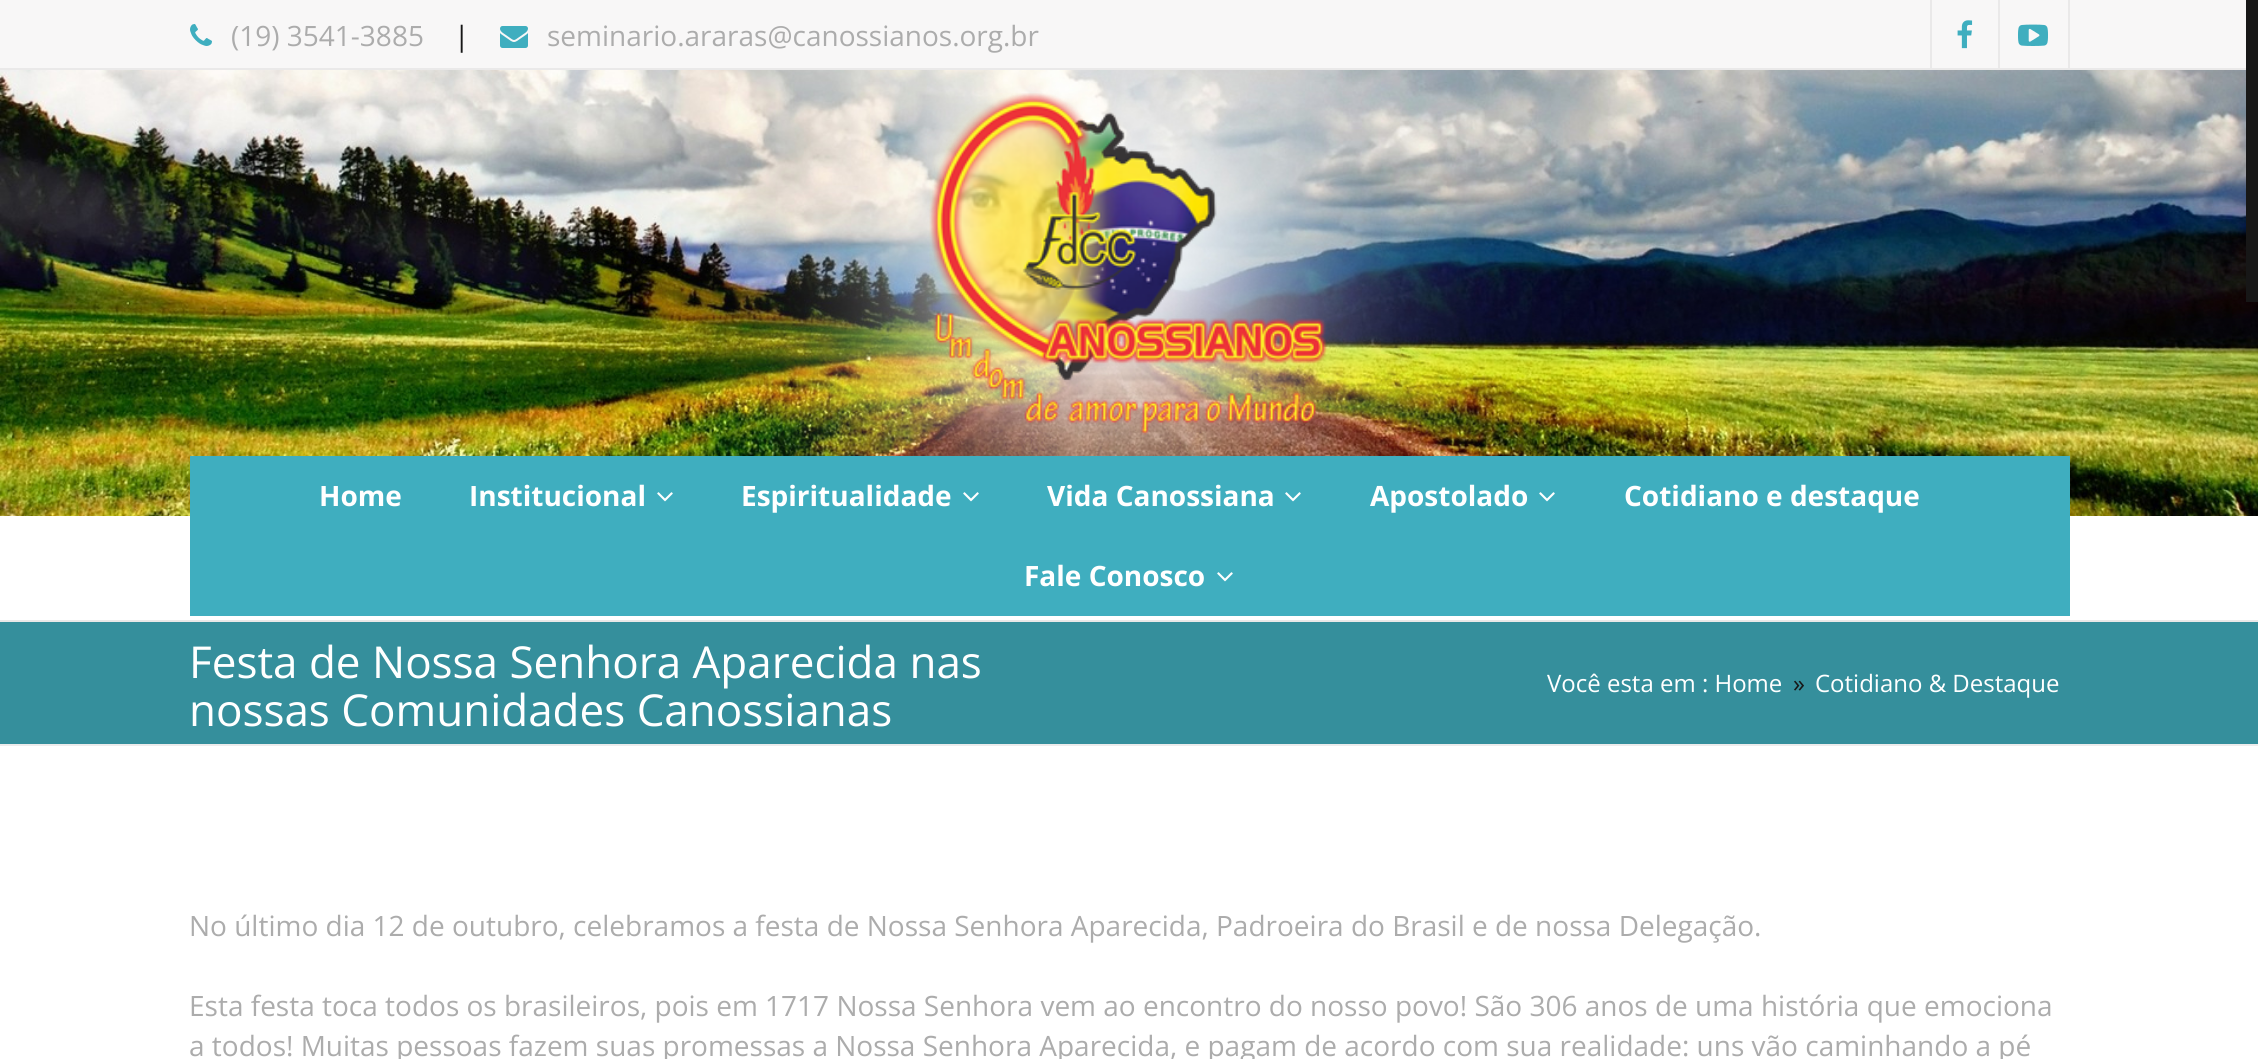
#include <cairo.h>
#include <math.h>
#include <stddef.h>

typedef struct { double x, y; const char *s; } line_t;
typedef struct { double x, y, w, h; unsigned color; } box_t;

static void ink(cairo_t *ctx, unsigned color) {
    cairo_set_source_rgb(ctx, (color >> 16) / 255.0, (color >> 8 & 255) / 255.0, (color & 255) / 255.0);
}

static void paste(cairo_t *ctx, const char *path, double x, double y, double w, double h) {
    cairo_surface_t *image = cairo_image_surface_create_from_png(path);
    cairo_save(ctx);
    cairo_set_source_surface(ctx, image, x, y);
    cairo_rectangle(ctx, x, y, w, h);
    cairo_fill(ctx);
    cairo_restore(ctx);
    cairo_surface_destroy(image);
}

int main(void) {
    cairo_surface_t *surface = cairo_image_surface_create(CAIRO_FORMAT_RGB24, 2258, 1059);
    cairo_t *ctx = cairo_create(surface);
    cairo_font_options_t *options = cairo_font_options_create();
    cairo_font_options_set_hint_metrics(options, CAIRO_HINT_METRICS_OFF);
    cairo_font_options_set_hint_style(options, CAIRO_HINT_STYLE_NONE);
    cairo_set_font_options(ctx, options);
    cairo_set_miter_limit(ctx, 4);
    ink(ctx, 0xFFFFFF);
    cairo_paint(ctx);
    ink(ctx, 0xF8F7F7);
    cairo_rectangle(ctx, 0, 0, 2246, 68);
    cairo_fill(ctx);
    ink(ctx, 0xEAE9E9);
    cairo_rectangle(ctx, 0, 68, 2246, 2);
    cairo_fill(ctx);
    paste(ctx, "media/1.png", 190, 24, 22, 22);
    cairo_select_font_face(ctx, "Open Sans", CAIRO_FONT_SLANT_NORMAL, CAIRO_FONT_WEIGHT_NORMAL);
    cairo_set_font_size(ctx, 28);
    ink(ctx, 0xACACAC);
    cairo_move_to(ctx, 231, 46);
    cairo_show_text(ctx, "(19) 3541-3885");
    ink(ctx, 0x171717);
    cairo_move_to(ctx, 454, 46);
    cairo_show_text(ctx, "|");
    paste(ctx, "media/2.png", 500, 26, 28, 22);
    ink(ctx, 0xACACAC);
    cairo_move_to(ctx, 547, 46);
    cairo_show_text(ctx, "seminario.araras@canossianos.org.br");
    ink(ctx, 0xEAE9E9);
    cairo_rectangle(ctx, 1998, 0, 2, 70);
    cairo_fill(ctx);
    cairo_rectangle(ctx, 1930, 0, 2, 70);
    cairo_fill(ctx);
    paste(ctx, "media/3.png", 1957, 20, 16, 29);
    cairo_rectangle(ctx, 2068, 0, 2, 70);
    cairo_fill(ctx);
    paste(ctx, "media/4.png", 2018, 24, 30, 22);
    paste(ctx, "media/5.png", 0, 70, 2258, 446);
    paste(ctx, "media/6.png", 929, 93, 399, 342);
    ink(ctx, 0x3FAEBF);
    cairo_rectangle(ctx, 190, 456, 1880, 160);
    cairo_fill(ctx);
    cairo_select_font_face(ctx, "Open Sans", CAIRO_FONT_SLANT_NORMAL, CAIRO_FONT_WEIGHT_BOLD);
    ink(ctx, 0xFFFFFF);
    cairo_move_to(ctx, 319, 506);
    cairo_show_text(ctx, "Home");
    cairo_move_to(ctx, 469, 506);
    cairo_show_text(ctx, "Institucional");
    paste(ctx, "media/7.png", 657, 492, 16, 10);
    cairo_move_to(ctx, 741, 506);
    cairo_show_text(ctx, "Espiritualidade");
    paste(ctx, "media/7.png", 963, 492, 16, 10);
    cairo_move_to(ctx, 1047, 506);
    cairo_show_text(ctx, "Vida Canossiana");
    paste(ctx, "media/7.png", 1285, 492, 16, 10);
    cairo_move_to(ctx, 1370, 506);
    cairo_show_text(ctx, "Apostolado");
    paste(ctx, "media/7.png", 1539, 492, 16, 10);
    cairo_move_to(ctx, 1624, 506);
    cairo_show_text(ctx, "Cotidiano e destaque");
    cairo_move_to(ctx, 1024, 586);
    cairo_show_text(ctx, "Fale Conosco");
    paste(ctx, "media/7.png", 1217, 572, 16, 10);
    {
        static const box_t items[] = {
            {0, 620, 2258, 2, 0xE9E8E8},
            {0, 622, 2258, 122, 0x358F9C},
            {0, 744, 2258, 2, 0xEDECEC},
        };
        for (size_t i = 0; i < sizeof items / sizeof *items; i++) {
            ink(ctx, items[i].color);
            cairo_rectangle(ctx, items[i].x, items[i].y, items[i].w, items[i].h);
            cairo_fill(ctx);
        }
    }
    cairo_select_font_face(ctx, "Open Sans", CAIRO_FONT_SLANT_NORMAL, CAIRO_FONT_WEIGHT_NORMAL);
    cairo_set_font_size(ctx, 44);
    ink(ctx, 0xFFFFFF);
    cairo_move_to(ctx, 189, 678);
    cairo_show_text(ctx, "Festa de Nossa Senhora Aparecida nas");
    cairo_move_to(ctx, 189, 726);
    cairo_show_text(ctx, "nossas Comunidades Canossianas");
    cairo_set_font_size(ctx, 24);
    cairo_move_to(ctx, 1547, 692);
    cairo_show_text(ctx, "Você esta em : Home");
    ink(ctx, 0x171717);
    cairo_move_to(ctx, 1793, 692);
    cairo_show_text(ctx, "»");
    ink(ctx, 0xFFFFFF);
    cairo_move_to(ctx, 1815, 692);
    cairo_show_text(ctx, "Cotidiano & Destaque");
    cairo_set_font_size(ctx, 28);
    ink(ctx, 0xACACAC);
    {
        static const line_t items[] = {
            {189, 936, "No último dia 12 de outubro, celebramos a festa de Nossa Senhora Aparecida, Padroeira do Brasil e de nossa Delegação."},
            {189, 1016, "Esta festa toca todos os brasileiros, pois em 1717 Nossa Senhora vem ao encontro do nosso povo! São 306 anos de uma história que emociona"},
            {189, 1056, "a todos! Muitas pessoas fazem suas promessas a Nossa Senhora Aparecida, e pagam de acordo com sua realidade: uns vão caminhando a pé"},
        };
        for (size_t i = 0; i < sizeof items / sizeof *items; i++) {
            cairo_move_to(ctx, items[i].x, items[i].y);
            cairo_show_text(ctx, items[i].s);
        }
    }
    ink(ctx, 0x171717);
    cairo_rectangle(ctx, 2246, 0, 12, 302);
    cairo_fill(ctx);
    cairo_surface_write_to_png(surface, "image.png");
    cairo_font_options_destroy(options);
    cairo_destroy(ctx);
    cairo_surface_destroy(surface);
    return 0;
}
